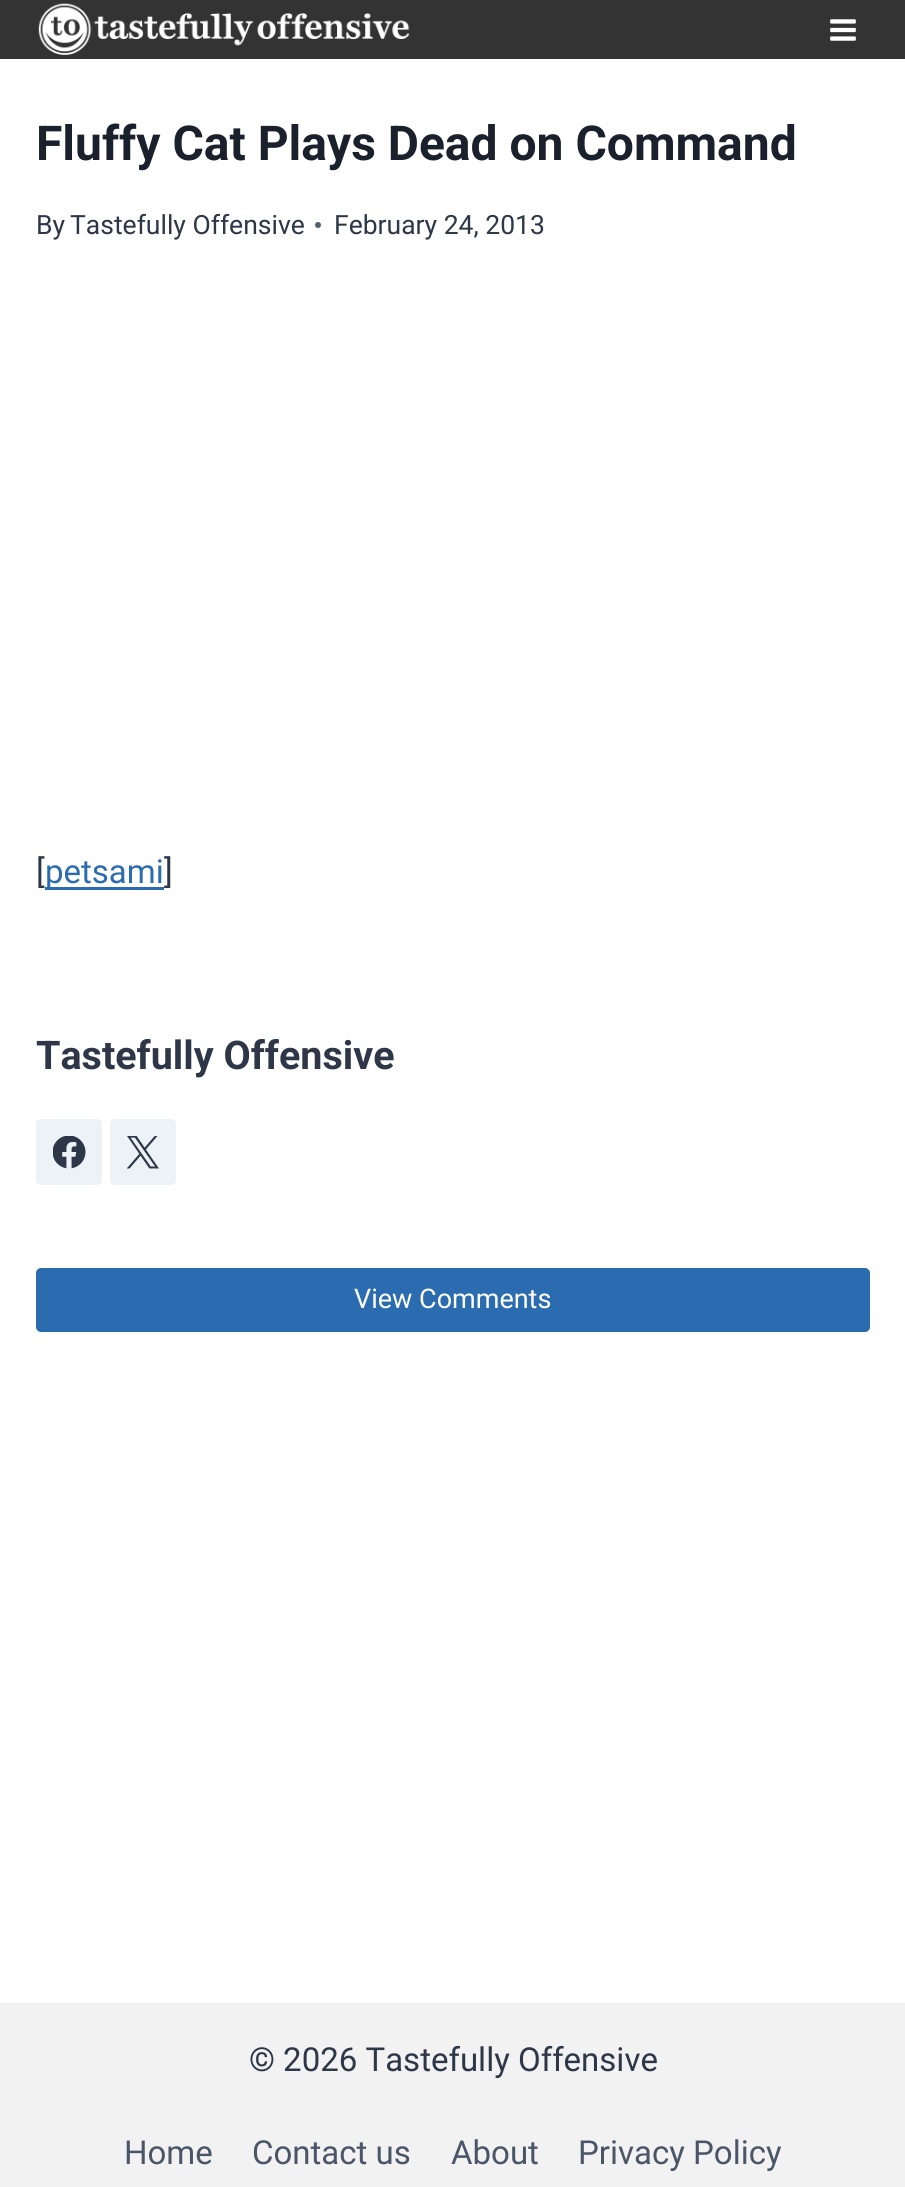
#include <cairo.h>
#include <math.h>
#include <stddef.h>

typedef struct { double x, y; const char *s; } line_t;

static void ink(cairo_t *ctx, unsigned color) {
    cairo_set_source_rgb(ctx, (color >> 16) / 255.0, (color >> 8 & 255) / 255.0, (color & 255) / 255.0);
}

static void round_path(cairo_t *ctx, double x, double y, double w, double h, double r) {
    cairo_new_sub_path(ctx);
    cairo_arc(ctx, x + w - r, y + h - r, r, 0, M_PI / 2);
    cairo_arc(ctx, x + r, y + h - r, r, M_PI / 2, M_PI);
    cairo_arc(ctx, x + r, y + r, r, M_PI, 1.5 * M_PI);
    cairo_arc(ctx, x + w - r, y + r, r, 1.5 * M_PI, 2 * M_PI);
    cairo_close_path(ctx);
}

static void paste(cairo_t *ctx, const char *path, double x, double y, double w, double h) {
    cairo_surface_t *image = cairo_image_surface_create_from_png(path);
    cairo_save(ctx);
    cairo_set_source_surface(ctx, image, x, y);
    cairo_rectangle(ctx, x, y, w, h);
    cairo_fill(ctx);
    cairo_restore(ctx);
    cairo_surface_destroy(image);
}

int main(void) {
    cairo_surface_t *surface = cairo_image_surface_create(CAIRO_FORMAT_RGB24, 905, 2187);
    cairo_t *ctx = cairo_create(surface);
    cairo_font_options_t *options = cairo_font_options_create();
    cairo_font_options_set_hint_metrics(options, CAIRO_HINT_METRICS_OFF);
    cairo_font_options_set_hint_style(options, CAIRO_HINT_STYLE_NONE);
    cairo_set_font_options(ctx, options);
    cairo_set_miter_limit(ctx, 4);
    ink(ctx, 0xFFFFFF);
    cairo_paint(ctx);
    ink(ctx, 0x333333);
    cairo_rectangle(ctx, 0, 0, 905, 59);
    cairo_fill(ctx);
    paste(ctx, "media/1.png", 38, 3, 372, 52);
    paste(ctx, "media/2.png", 830, 19, 26, 22);
    cairo_select_font_face(ctx, "Roboto", CAIRO_FONT_SLANT_NORMAL, CAIRO_FONT_WEIGHT_BOLD);
    cairo_set_font_size(ctx, 48);
    ink(ctx, 0x1A202C);
    cairo_move_to(ctx, 36, 160);
    cairo_show_text(ctx, "Fluffy Cat Plays Dead on Command");
    cairo_select_font_face(ctx, "Roboto", CAIRO_FONT_SLANT_NORMAL, CAIRO_FONT_WEIGHT_NORMAL);
    cairo_set_font_size(ctx, 26.5);
    ink(ctx, 0x2D3748);
    cairo_move_to(ctx, 36, 234);
    cairo_show_text(ctx, "By");
    cairo_move_to(ctx, 70, 234);
    cairo_show_text(ctx, "Tastefully Offensive");
    ink(ctx, 0x575F6D);
    cairo_new_path(ctx);
    cairo_arc(ctx, 318, 225, 3, 0, 2 * M_PI);
    cairo_fill(ctx);
    ink(ctx, 0x2D3748);
    cairo_move_to(ctx, 334, 234);
    cairo_show_text(ctx, "February 24, 2013");
    cairo_set_font_size(ctx, 33);
    cairo_move_to(ctx, 36, 883);
    cairo_show_text(ctx, "[");
    ink(ctx, 0x2B6CB0);
    cairo_rectangle(ctx, 45, 887, 119, 3);
    cairo_fill(ctx);
    cairo_move_to(ctx, 45, 883);
    cairo_show_text(ctx, "petsami");
    ink(ctx, 0x2D3748);
    cairo_move_to(ctx, 164, 883);
    cairo_show_text(ctx, "]");
    cairo_select_font_face(ctx, "Roboto", CAIRO_FONT_SLANT_NORMAL, CAIRO_FONT_WEIGHT_BOLD);
    cairo_set_font_size(ctx, 39.5);
    cairo_move_to(ctx, 36, 1069);
    cairo_show_text(ctx, "Tastefully Offensive");
    ink(ctx, 0xEDF2F7);
    round_path(ctx, 36, 1119, 66, 66, 5);
    cairo_fill(ctx);
    paste(ctx, "media/3.png", 53, 1136, 33, 33);
    round_path(ctx, 110, 1119, 66, 66, 5);
    cairo_fill(ctx);
    paste(ctx, "media/4.png", 126, 1136, 33, 33);
    ink(ctx, 0x2B6CB0);
    round_path(ctx, 36, 1268, 834, 64, 5);
    cairo_fill(ctx);
    cairo_select_font_face(ctx, "Roboto", CAIRO_FONT_SLANT_NORMAL, CAIRO_FONT_WEIGHT_NORMAL);
    cairo_set_font_size(ctx, 27);
    ink(ctx, 0xFFFFFF);
    cairo_move_to(ctx, 354, 1308);
    cairo_show_text(ctx, "View Comments");
    ink(ctx, 0xF2F2F2);
    cairo_rectangle(ctx, 0, 2003, 905, 184);
    cairo_fill(ctx);
    cairo_set_font_size(ctx, 33);
    ink(ctx, 0x2D3748);
    cairo_move_to(ctx, 249, 2071);
    cairo_show_text(ctx, "© 2026 Tastefully Offensive");
    ink(ctx, 0x4A5568);
    {
        static const line_t items[] = {
            {124, 2164, "Home"},
            {252, 2164, "Contact us"},
            {451, 2164, "About"},
            {578, 2164, "Privacy Policy"},
        };
        for (size_t i = 0; i < sizeof items / sizeof *items; i++) {
            cairo_move_to(ctx, items[i].x, items[i].y);
            cairo_show_text(ctx, items[i].s);
        }
    }
    cairo_surface_write_to_png(surface, "image.png");
    cairo_font_options_destroy(options);
    cairo_destroy(ctx);
    cairo_surface_destroy(surface);
    return 0;
}
